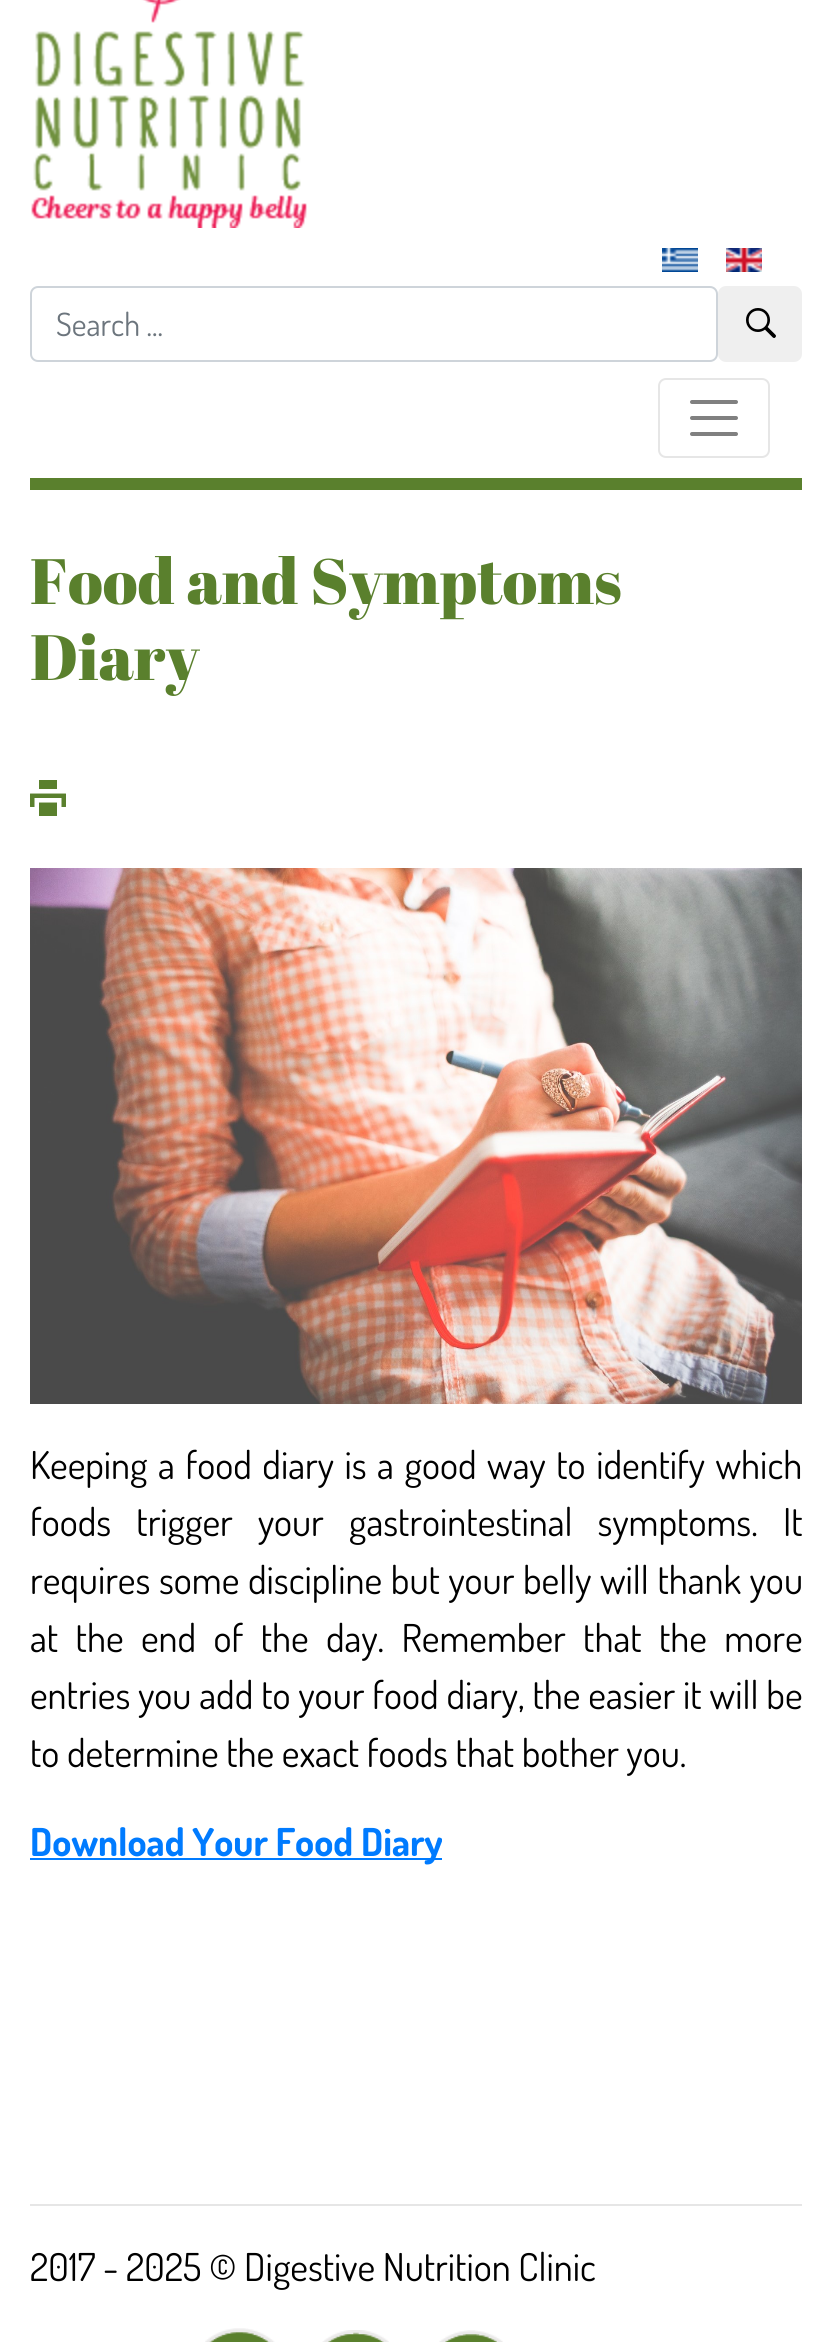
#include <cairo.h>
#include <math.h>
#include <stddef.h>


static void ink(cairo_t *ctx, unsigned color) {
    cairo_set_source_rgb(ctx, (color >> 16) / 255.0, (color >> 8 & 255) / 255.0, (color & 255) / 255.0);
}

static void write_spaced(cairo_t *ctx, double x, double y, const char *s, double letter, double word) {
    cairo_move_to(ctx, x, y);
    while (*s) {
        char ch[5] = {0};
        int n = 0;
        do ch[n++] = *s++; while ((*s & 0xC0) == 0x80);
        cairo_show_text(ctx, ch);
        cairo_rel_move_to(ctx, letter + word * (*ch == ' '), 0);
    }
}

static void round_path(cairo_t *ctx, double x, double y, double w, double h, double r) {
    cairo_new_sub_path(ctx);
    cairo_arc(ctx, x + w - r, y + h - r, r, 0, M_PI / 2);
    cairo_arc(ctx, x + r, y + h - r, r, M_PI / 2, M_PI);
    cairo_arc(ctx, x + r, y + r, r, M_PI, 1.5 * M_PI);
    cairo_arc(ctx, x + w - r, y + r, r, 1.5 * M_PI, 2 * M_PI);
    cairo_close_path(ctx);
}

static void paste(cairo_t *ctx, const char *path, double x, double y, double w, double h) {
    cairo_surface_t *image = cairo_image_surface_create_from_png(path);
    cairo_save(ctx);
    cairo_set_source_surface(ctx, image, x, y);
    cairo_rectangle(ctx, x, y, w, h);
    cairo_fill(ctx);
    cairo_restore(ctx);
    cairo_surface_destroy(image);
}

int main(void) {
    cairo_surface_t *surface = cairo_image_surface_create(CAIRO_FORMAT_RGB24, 831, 2342);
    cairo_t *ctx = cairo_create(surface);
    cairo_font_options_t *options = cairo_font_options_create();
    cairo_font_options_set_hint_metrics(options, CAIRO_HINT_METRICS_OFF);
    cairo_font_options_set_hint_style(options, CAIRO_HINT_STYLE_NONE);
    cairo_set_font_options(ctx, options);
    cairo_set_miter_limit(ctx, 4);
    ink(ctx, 0xFFFFFF);
    cairo_paint(ctx);
    paste(ctx, "media/1.png", 31, 0, 276, 228);
    paste(ctx, "media/2.png", 662, 248, 36, 24);
    paste(ctx, "media/3.png", 726, 248, 36, 24);
    round_path(ctx, 31, 287, 686, 74, 7);
    ink(ctx, 0xCED4DA);
    cairo_stroke(ctx);
    cairo_select_font_face(ctx, "Dosis", CAIRO_FONT_SLANT_NORMAL, CAIRO_FONT_WEIGHT_NORMAL);
    cairo_set_font_size(ctx, 32);
    ink(ctx, 0x6C757D);
    cairo_move_to(ctx, 56, 336);
    cairo_show_text(ctx, "Search ...");
    ink(ctx, 0xEFEFEF);
    round_path(ctx, 718, 286, 84, 76, 8);
    cairo_fill(ctx);
    paste(ctx, "media/4.png", 746, 308, 30, 30);
    round_path(ctx, 659, 379, 110, 78, 7);
    ink(ctx, 0xE6E6E6);
    cairo_stroke(ctx);
    cairo_new_path(ctx);
    cairo_move_to(ctx, 692, 402);
    cairo_line_to(ctx, 736, 402);
    cairo_move_to(ctx, 692, 418);
    cairo_line_to(ctx, 736, 418);
    cairo_move_to(ctx, 692, 434);
    cairo_line_to(ctx, 736, 434);
    ink(ctx, 0x808080);
    cairo_set_line_width(ctx, 4);
    cairo_set_line_cap(ctx, CAIRO_LINE_CAP_ROUND);
    cairo_stroke(ctx);
    ink(ctx, 0x5A802D);
    cairo_rectangle(ctx, 30, 478, 772, 12);
    cairo_fill(ctx);
    cairo_select_font_face(ctx, "Abril Fatface", CAIRO_FONT_SLANT_NORMAL, CAIRO_FONT_WEIGHT_NORMAL);
    cairo_set_font_size(ctx, 64);
    cairo_move_to(ctx, 30, 604);
    cairo_show_text(ctx, "Food and Symptoms");
    cairo_move_to(ctx, 30, 680);
    cairo_show_text(ctx, "Diary");
    paste(ctx, "media/5.png", 30, 780, 36, 36);
    paste(ctx, "media/6.png", 30, 868, 772, 536);
    cairo_select_font_face(ctx, "Dosis", CAIRO_FONT_SLANT_NORMAL, CAIRO_FONT_WEIGHT_NORMAL);
    cairo_set_font_size(ctx, 38.4);
    ink(ctx, 0x000000);
    write_spaced(ctx, 30, 1479, "Keeping a food diary is a good way to identify which", 0, 2.9);
    write_spaced(ctx, 30, 1536, "foods trigger your gastrointestinal symptoms. It", 0, 17.5);
    write_spaced(ctx, 30, 1594, "requires some discipline but your belly will thank you", 0, 1);
    write_spaced(ctx, 30, 1652, "at the end of the day. Remember that the more", 0, 9.75);
    write_spaced(ctx, 30, 1709, "entries you add to your food diary, the easier it will be", 0, 0.25);
    cairo_move_to(ctx, 30, 1767);
    cairo_show_text(ctx, "to determine the exact foods that bother you.");
    ink(ctx, 0x007BFF);
    cairo_rectangle(ctx, 30, 1858, 412, 2);
    cairo_fill(ctx);
    cairo_select_font_face(ctx, "Dosis", CAIRO_FONT_SLANT_NORMAL, CAIRO_FONT_WEIGHT_BOLD);
    cairo_move_to(ctx, 30, 1856);
    cairo_show_text(ctx, "Download Your Food Diary");
    ink(ctx, 0xE6E6E6);
    cairo_rectangle(ctx, 30, 2204, 772, 2);
    cairo_fill(ctx);
    cairo_select_font_face(ctx, "Dosis", CAIRO_FONT_SLANT_NORMAL, CAIRO_FONT_WEIGHT_NORMAL);
    ink(ctx, 0x000000);
    cairo_move_to(ctx, 30, 2281);
    cairo_show_text(ctx, "2017 - 2025 © Digestive Nutrition Clinic");
    paste(ctx, "media/7.png", 205, 2328, 70, 14);
    paste(ctx, "media/8.png", 322, 2330, 67, 12);
    paste(ctx, "media/9.png", 439, 2330, 64, 12);
    cairo_surface_write_to_png(surface, "image.png");
    cairo_font_options_destroy(options);
    cairo_destroy(ctx);
    cairo_surface_destroy(surface);
    return 0;
}
